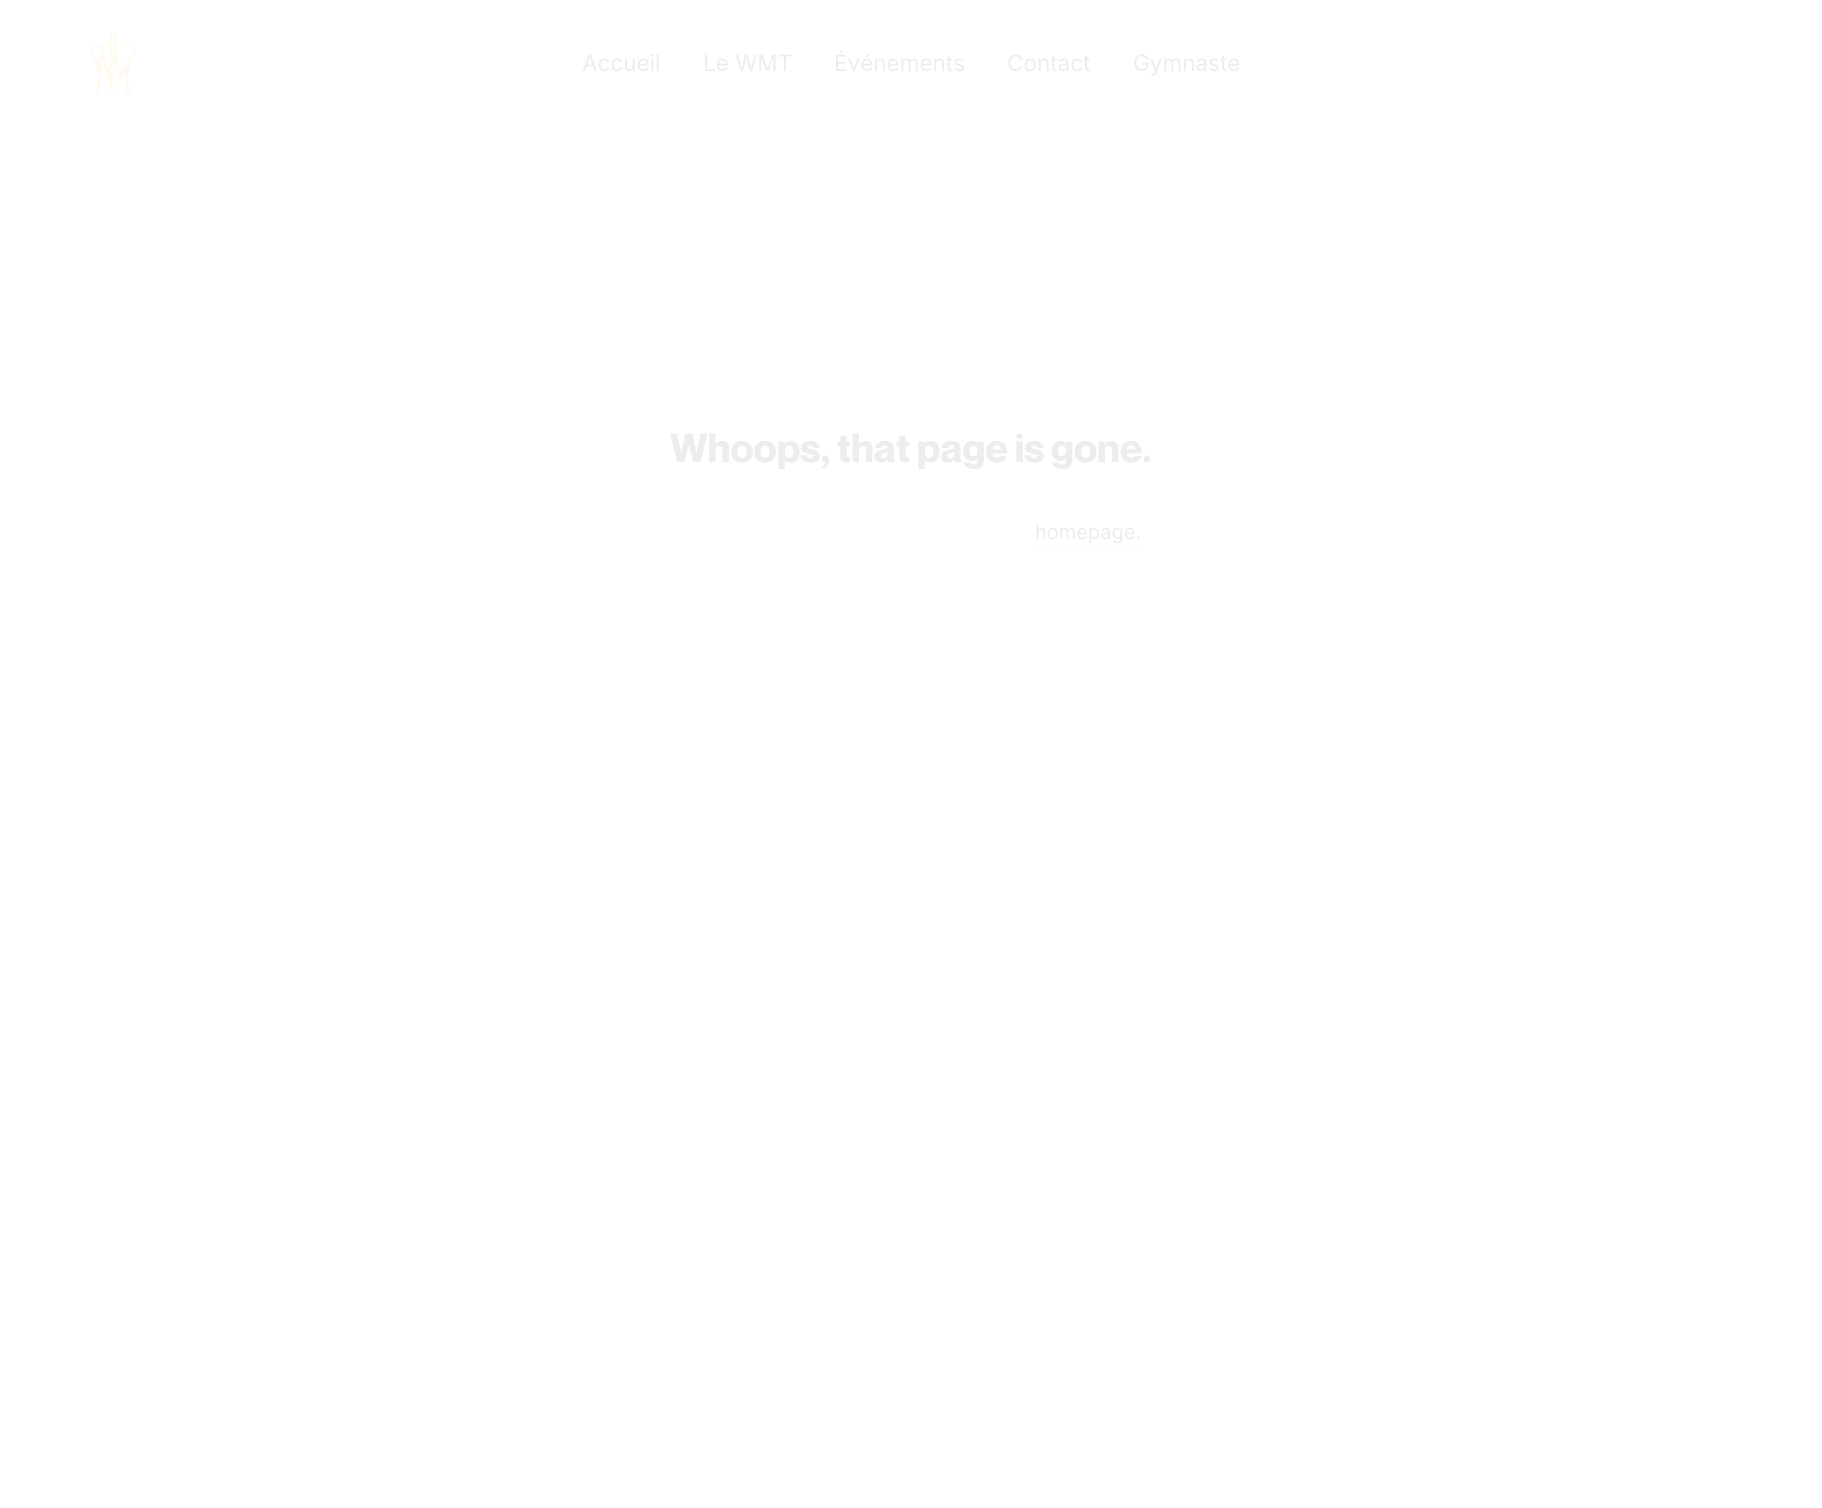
#include <cairo.h>
#include <math.h>
#include <stddef.h>

typedef struct { double x, y; const char *s; } line_t;

static void ink(cairo_t *ctx, unsigned color) {
    cairo_set_source_rgb(ctx, (color >> 16) / 255.0, (color >> 8 & 255) / 255.0, (color & 255) / 255.0);
}

static void paste(cairo_t *ctx, const char *path, double x, double y, double w, double h) {
    cairo_surface_t *image = cairo_image_surface_create_from_png(path);
    cairo_save(ctx);
    cairo_set_source_surface(ctx, image, x, y);
    cairo_rectangle(ctx, x, y, w, h);
    cairo_fill(ctx);
    cairo_restore(ctx);
    cairo_surface_destroy(image);
}

int main(void) {
    cairo_surface_t *surface = cairo_image_surface_create(CAIRO_FORMAT_RGB24, 1822, 1508);
    cairo_t *ctx = cairo_create(surface);
    cairo_font_options_t *options = cairo_font_options_create();
    cairo_font_options_set_hint_metrics(options, CAIRO_HINT_METRICS_OFF);
    cairo_font_options_set_hint_style(options, CAIRO_HINT_STYLE_NONE);
    cairo_set_font_options(ctx, options);
    cairo_set_miter_limit(ctx, 4);
    ink(ctx, 0xFFFFFF);
    cairo_paint(ctx);
    paste(ctx, "media/1.png", 87, 31, 53, 63);
    cairo_select_font_face(ctx, "Inter", CAIRO_FONT_SLANT_NORMAL, CAIRO_FONT_WEIGHT_NORMAL);
    cairo_set_font_size(ctx, 22.5);
    ink(ctx, 0xEDEDED);
    {
        static const line_t items[] = {
            {582, 71, "Accueil"},
            {703, 71, "Le WMT"},
            {834, 71, "Événements"},
            {1007, 71, "Contact"},
            {1133, 71, "Gymnaste"},
        };
        for (size_t i = 0; i < sizeof items / sizeof *items; i++) {
            cairo_move_to(ctx, items[i].x, items[i].y);
            cairo_show_text(ctx, items[i].s);
        }
    }
    cairo_select_font_face(ctx, "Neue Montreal", CAIRO_FONT_SLANT_NORMAL, CAIRO_FONT_WEIGHT_BOLD);
    cairo_set_font_size(ctx, 40);
    cairo_move_to(ctx, 670, 462);
    cairo_show_text(ctx, "Whoops, that page is gone.");
    cairo_select_font_face(ctx, "Inter", CAIRO_FONT_SLANT_NORMAL, CAIRO_FONT_WEIGHT_NORMAL);
    cairo_set_font_size(ctx, 20);
    cairo_move_to(ctx, 1035, 539);
    cairo_show_text(ctx, "homepage.");
    ink(ctx, 0xFFFBED);
    cairo_rectangle(ctx, 1035, 545, 106, 1);
    cairo_fill(ctx);
    cairo_surface_write_to_png(surface, "image.png");
    cairo_font_options_destroy(options);
    cairo_destroy(ctx);
    cairo_surface_destroy(surface);
    return 0;
}
